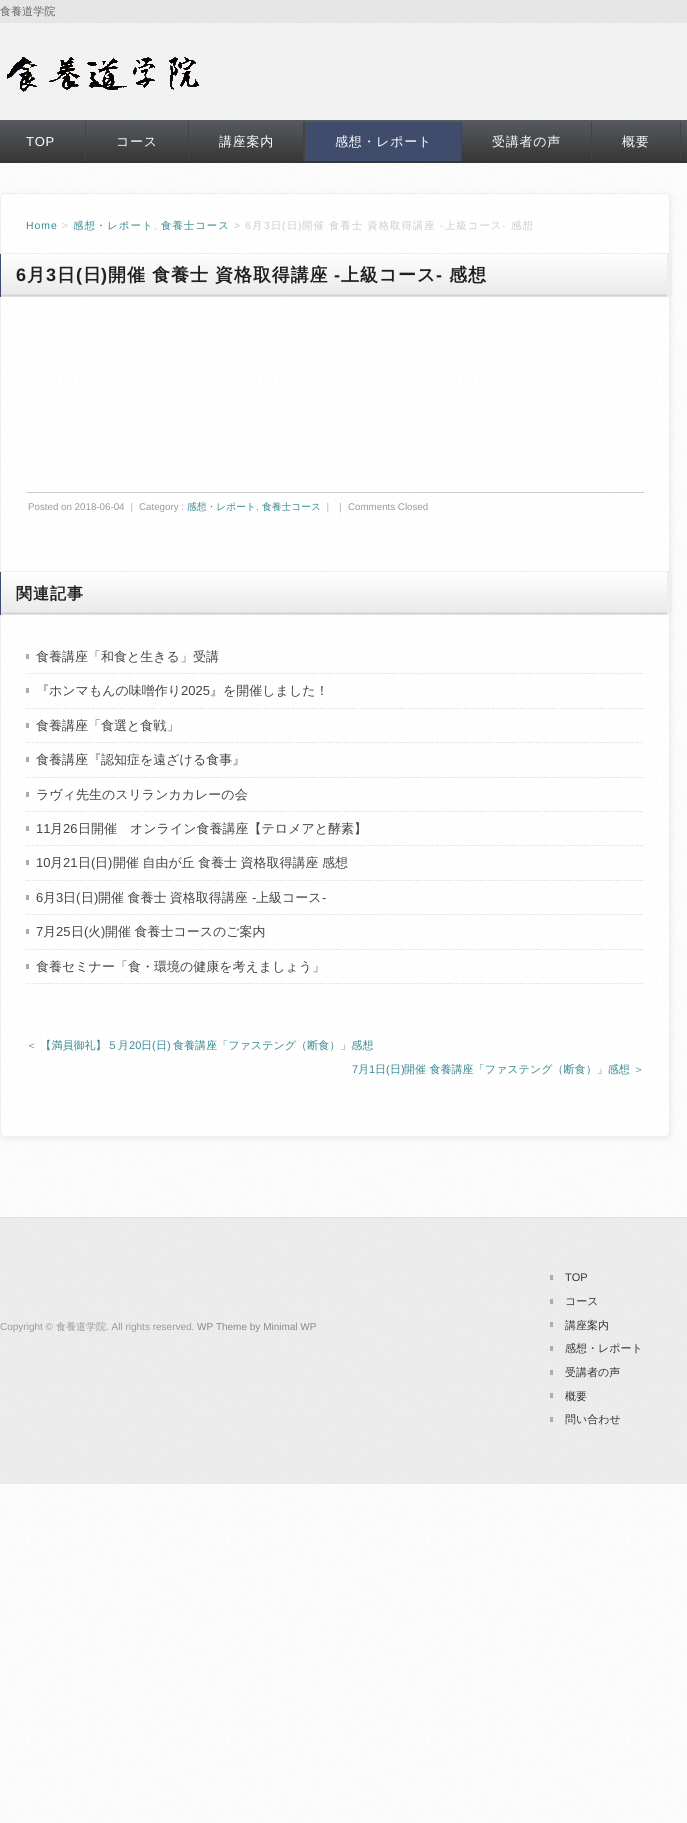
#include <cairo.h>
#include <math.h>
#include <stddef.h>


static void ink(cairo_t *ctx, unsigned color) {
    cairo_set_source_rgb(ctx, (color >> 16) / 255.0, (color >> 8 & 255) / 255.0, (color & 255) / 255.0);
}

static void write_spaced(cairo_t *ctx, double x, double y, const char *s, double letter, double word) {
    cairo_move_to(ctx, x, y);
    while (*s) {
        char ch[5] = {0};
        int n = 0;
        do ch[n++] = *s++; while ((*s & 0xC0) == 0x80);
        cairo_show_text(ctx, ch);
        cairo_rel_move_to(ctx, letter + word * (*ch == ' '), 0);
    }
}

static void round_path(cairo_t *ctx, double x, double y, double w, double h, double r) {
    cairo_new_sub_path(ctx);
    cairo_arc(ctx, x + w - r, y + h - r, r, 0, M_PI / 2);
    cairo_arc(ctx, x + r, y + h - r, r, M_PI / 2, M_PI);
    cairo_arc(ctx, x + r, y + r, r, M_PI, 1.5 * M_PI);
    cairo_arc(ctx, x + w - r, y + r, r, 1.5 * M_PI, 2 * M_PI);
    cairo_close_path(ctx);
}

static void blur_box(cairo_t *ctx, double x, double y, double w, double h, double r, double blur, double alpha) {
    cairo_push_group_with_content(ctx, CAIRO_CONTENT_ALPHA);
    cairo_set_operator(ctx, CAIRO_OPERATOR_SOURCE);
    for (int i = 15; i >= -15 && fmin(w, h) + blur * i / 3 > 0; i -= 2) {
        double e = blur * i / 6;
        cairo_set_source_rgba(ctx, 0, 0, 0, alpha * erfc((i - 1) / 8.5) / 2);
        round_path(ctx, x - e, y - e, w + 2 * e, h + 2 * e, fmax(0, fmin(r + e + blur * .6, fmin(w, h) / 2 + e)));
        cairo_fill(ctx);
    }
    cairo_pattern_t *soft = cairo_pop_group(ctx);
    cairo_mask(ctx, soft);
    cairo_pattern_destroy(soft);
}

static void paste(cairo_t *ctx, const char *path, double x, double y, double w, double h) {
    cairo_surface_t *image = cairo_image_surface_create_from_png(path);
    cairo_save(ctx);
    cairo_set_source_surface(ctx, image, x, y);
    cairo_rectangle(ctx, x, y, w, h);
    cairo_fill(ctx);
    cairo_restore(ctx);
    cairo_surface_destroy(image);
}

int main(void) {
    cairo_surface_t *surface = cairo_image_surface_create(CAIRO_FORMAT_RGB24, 687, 1823);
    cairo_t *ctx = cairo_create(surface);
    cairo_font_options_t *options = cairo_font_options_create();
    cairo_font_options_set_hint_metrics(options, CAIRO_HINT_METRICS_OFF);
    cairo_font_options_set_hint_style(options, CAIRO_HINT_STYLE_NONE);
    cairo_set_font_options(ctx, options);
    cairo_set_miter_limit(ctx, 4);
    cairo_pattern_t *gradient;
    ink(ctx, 0xFCFCFC);
    cairo_paint(ctx);
    paste(ctx, "media/1.png", 0, 163, 687, 1660);
    ink(ctx, 0xF2F2F2);
    cairo_rectangle(ctx, 0, 23, 687, 97);
    cairo_fill(ctx);
    paste(ctx, "media/2.png", 0, 23, 687, 97);
    ink(ctx, 0xE6E6E6);
    cairo_rectangle(ctx, 0, 0, 687, 23);
    cairo_fill(ctx);
    paste(ctx, "media/3.png", 0, 0, 687, 23);
    cairo_select_font_face(ctx, "WenQuanYi Zen Hei Medium", CAIRO_FONT_SLANT_NORMAL, CAIRO_FONT_WEIGHT_NORMAL);
    cairo_set_font_size(ctx, 11.05);
    ink(ctx, 0x666666);
    cairo_move_to(ctx, 0, 15);
    cairo_show_text(ctx, "食養道学院");
    paste(ctx, "media/4.png", 7, 57, 192, 35);
    gradient = cairo_pattern_create_linear(344, 120, 344, 163);
    cairo_pattern_add_color_stop_rgba(gradient, 0, 0.341, 0.353, 0.376, 1);
    cairo_pattern_add_color_stop_rgba(gradient, 1, 0.208, 0.208, 0.208, 1);
    cairo_set_source(ctx, gradient);
    cairo_pattern_destroy(gradient);
    cairo_rectangle(ctx, 0, 120, 687, 43);
    cairo_fill(ctx);
    cairo_select_font_face(ctx, "Liberation Sans", CAIRO_FONT_SLANT_NORMAL, CAIRO_FONT_WEIGHT_NORMAL);
    cairo_set_font_size(ctx, 13);
    ink(ctx, 0xFFFFFF);
    write_spaced(ctx, 26, 146, "TOP", 0.75, 0);
    ink(ctx, 0x444444);
    cairo_rectangle(ctx, 85, 122, 1, 39);
    cairo_fill(ctx);
    cairo_select_font_face(ctx, "WenQuanYi Zen Hei Medium", CAIRO_FONT_SLANT_NORMAL, CAIRO_FONT_WEIGHT_NORMAL);
    ink(ctx, 0xFFFFFF);
    write_spaced(ctx, 116, 146, "コース", 0.75, 0);
    ink(ctx, 0x444444);
    cairo_rectangle(ctx, 188, 122, 1, 39);
    cairo_fill(ctx);
    ink(ctx, 0xFFFFFF);
    write_spaced(ctx, 219, 146, "講座案内", 0.75, 0);
    ink(ctx, 0x444444);
    cairo_rectangle(ctx, 303, 122, 2, 39);
    cairo_fill(ctx);
    ink(ctx, 0x3F4C6B);
    cairo_rectangle(ctx, 305, 122, 156, 39);
    cairo_fill(ctx);
    ink(ctx, 0xFFFFFF);
    write_spaced(ctx, 335, 146, "感想・レポート", 0.75, 0);
    ink(ctx, 0x444444);
    cairo_rectangle(ctx, 461, 122, 1, 39);
    cairo_fill(ctx);
    ink(ctx, 0xFFFFFF);
    write_spaced(ctx, 492, 146, "受講者の声", 0.75, 0);
    ink(ctx, 0x444444);
    cairo_rectangle(ctx, 591, 122, 1, 39);
    cairo_fill(ctx);
    ink(ctx, 0xFFFFFF);
    write_spaced(ctx, 622, 146, "概要", 0.75, 0);
    ink(ctx, 0x444444);
    cairo_rectangle(ctx, 680, 122, 1, 39);
    cairo_fill(ctx);
    ink(ctx, 0xEEEEEE);
    blur_box(ctx, 0, 194, 672, 946, 6, 2.5, 1);
    ink(ctx, 0xFFFFFF);
    round_path(ctx, 0, 193, 670, 944, 5);
    cairo_fill(ctx);
    paste(ctx, "media/5.png", 1, 194, 668, 942);
    round_path(ctx, 0.5, 193.5, 669, 943, 4.5);
    ink(ctx, 0xEEEEEE);
    cairo_set_line_width(ctx, 1);
    cairo_stroke(ctx);
    cairo_select_font_face(ctx, "Liberation Sans", CAIRO_FONT_SLANT_NORMAL, CAIRO_FONT_WEIGHT_NORMAL);
    cairo_set_font_size(ctx, 10.4);
    ink(ctx, 0x378893);
    write_spaced(ctx, 26, 229, "Home", 1, 0);
    ink(ctx, 0xCCCCCC);
    write_spaced(ctx, 62, 229, ">", 1, 0);
    cairo_select_font_face(ctx, "WenQuanYi Zen Hei Medium", CAIRO_FONT_SLANT_NORMAL, CAIRO_FONT_WEIGHT_NORMAL);
    ink(ctx, 0x378893);
    write_spaced(ctx, 73, 229, "感想・レポート", 1, 0);
    write_spaced(ctx, 161, 229, "食養士コース", 1, 0);
    cairo_select_font_face(ctx, "Liberation Sans", CAIRO_FONT_SLANT_NORMAL, CAIRO_FONT_WEIGHT_NORMAL);
    ink(ctx, 0xCCCCCC);
    write_spaced(ctx, 234, 229, "> 6", 1, 0);
    cairo_select_font_face(ctx, "WenQuanYi Zen Hei Medium", CAIRO_FONT_SLANT_NORMAL, CAIRO_FONT_WEIGHT_NORMAL);
    write_spaced(ctx, 252, 229, "月", 1, 0);
    cairo_select_font_face(ctx, "Liberation Sans", CAIRO_FONT_SLANT_NORMAL, CAIRO_FONT_WEIGHT_NORMAL);
    write_spaced(ctx, 264, 229, "3", 1, 0);
    cairo_select_font_face(ctx, "WenQuanYi Zen Hei Medium", CAIRO_FONT_SLANT_NORMAL, CAIRO_FONT_WEIGHT_NORMAL);
    write_spaced(ctx, 271, 229, "日", 1, 0);
    cairo_select_font_face(ctx, "Liberation Sans", CAIRO_FONT_SLANT_NORMAL, CAIRO_FONT_WEIGHT_NORMAL);
    write_spaced(ctx, 282, 229, "(", 1, 0);
    cairo_select_font_face(ctx, "WenQuanYi Zen Hei Medium", CAIRO_FONT_SLANT_NORMAL, CAIRO_FONT_WEIGHT_NORMAL);
    write_spaced(ctx, 287, 229, "日", 1, 0);
    cairo_select_font_face(ctx, "Liberation Sans", CAIRO_FONT_SLANT_NORMAL, CAIRO_FONT_WEIGHT_NORMAL);
    write_spaced(ctx, 298, 229, ")", 1, 0);
    cairo_select_font_face(ctx, "WenQuanYi Zen Hei Medium", CAIRO_FONT_SLANT_NORMAL, CAIRO_FONT_WEIGHT_NORMAL);
    write_spaced(ctx, 302, 229, "開催 食養士 資格取得講座", 1, 0);
    cairo_select_font_face(ctx, "Liberation Sans", CAIRO_FONT_SLANT_NORMAL, CAIRO_FONT_WEIGHT_NORMAL);
    write_spaced(ctx, 440, 229, "-", 1, 0);
    cairo_select_font_face(ctx, "WenQuanYi Zen Hei Medium", CAIRO_FONT_SLANT_NORMAL, CAIRO_FONT_WEIGHT_NORMAL);
    write_spaced(ctx, 445, 229, "上級コース", 1, 0);
    cairo_select_font_face(ctx, "Liberation Sans", CAIRO_FONT_SLANT_NORMAL, CAIRO_FONT_WEIGHT_NORMAL);
    write_spaced(ctx, 502, 229, "-", 1, 0);
    cairo_select_font_face(ctx, "WenQuanYi Zen Hei Medium", CAIRO_FONT_SLANT_NORMAL, CAIRO_FONT_WEIGHT_NORMAL);
    write_spaced(ctx, 511, 229, "感想", 1, 0);
    cairo_select_font_face(ctx, "Liberation Sans", CAIRO_FONT_SLANT_NORMAL, CAIRO_FONT_WEIGHT_NORMAL);
    write_spaced(ctx, 154, 229, ",", 1, 0);
    cairo_save(ctx);
    round_path(ctx, -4, 253, 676, 44, 5);
    cairo_clip(ctx);
    gradient = cairo_pattern_create_linear(334, 211, 334, 254);
    cairo_pattern_add_color_stop_rgba(gradient, 0, 0.996, 0.996, 0.996, 1);
    cairo_pattern_add_color_stop_rgba(gradient, 0.93, 0.918, 0.918, 0.918, 1);
    cairo_pattern_add_color_stop_rgba(gradient, 0.96, 0.82, 0.82, 0.82, 1);
    cairo_pattern_add_color_stop_rgba(gradient, 0.99, 0.886, 0.886, 0.886, 1);
    cairo_set_source(ctx, gradient);
    cairo_pattern_destroy(gradient);
    cairo_rectangle(ctx, 0, 253, 672, 1);
    cairo_fill(ctx);
    gradient = cairo_pattern_create_linear(334, 254, 334, 297);
    cairo_pattern_add_color_stop_rgba(gradient, 0, 0.996, 0.996, 0.996, 1);
    cairo_pattern_add_color_stop_rgba(gradient, 0.93, 0.918, 0.918, 0.918, 1);
    cairo_pattern_add_color_stop_rgba(gradient, 0.96, 0.82, 0.82, 0.82, 1);
    cairo_pattern_add_color_stop_rgba(gradient, 0.99, 0.886, 0.886, 0.886, 1);
    cairo_set_source(ctx, gradient);
    cairo_pattern_destroy(gradient);
    cairo_new_path(ctx);
    cairo_move_to(ctx, -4, 254);
    cairo_line_to(ctx, 672, 254);
    cairo_line_to(ctx, 672, 292);
    cairo_curve_to(ctx, 672, 295, 670, 297, 667, 297);
    cairo_line_to(ctx, 1, 297);
    cairo_curve_to(ctx, -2, 297, -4, 295, -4, 292);
    cairo_close_path(ctx);
    cairo_fill(ctx);
    cairo_restore(ctx);
    ink(ctx, 0xEEEEEE);
    cairo_new_path(ctx);
    cairo_move_to(ctx, 1, 253);
    cairo_line_to(ctx, -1, 254);
    cairo_line_to(ctx, 1, 254);
    cairo_line_to(ctx, 667, 254);
    cairo_line_to(ctx, 669, 254);
    cairo_line_to(ctx, 667, 253);
    cairo_close_path(ctx);
    cairo_fill(ctx);
    cairo_new_path(ctx);
    cairo_move_to(ctx, 672, 292);
    cairo_line_to(ctx, 672, 258);
    cairo_curve_to(ctx, 672, 256, 671, 254, 669, 254);
    cairo_line_to(ctx, 667, 254);
    cairo_line_to(ctx, 667, 297);
    cairo_curve_to(ctx, 670, 297, 672, 295, 672, 292);
    cairo_close_path(ctx);
    cairo_fill(ctx);
    ink(ctx, 0x3F4C6B);
    cairo_new_path(ctx);
    cairo_move_to(ctx, 1, 254);
    cairo_line_to(ctx, -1, 254);
    cairo_curve_to(ctx, -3, 254, -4, 256, -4, 258);
    cairo_line_to(ctx, -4, 292);
    cairo_curve_to(ctx, -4, 295, -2, 297, 1, 297);
    cairo_close_path(ctx);
    cairo_fill(ctx);
    cairo_select_font_face(ctx, "Liberation Sans", CAIRO_FONT_SLANT_NORMAL, CAIRO_FONT_WEIGHT_BOLD);
    cairo_set_font_size(ctx, 18);
    ink(ctx, 0x202020);
    write_spaced(ctx, 16, 281, "6", 0.9, 0);
    cairo_select_font_face(ctx, "WenQuanYi Zen Hei", CAIRO_FONT_SLANT_NORMAL, CAIRO_FONT_WEIGHT_BOLD);
    write_spaced(ctx, 27, 281, "月", 0.9, 0);
    cairo_select_font_face(ctx, "Liberation Sans", CAIRO_FONT_SLANT_NORMAL, CAIRO_FONT_WEIGHT_BOLD);
    write_spaced(ctx, 46, 281, "3", 0.9, 0);
    cairo_select_font_face(ctx, "WenQuanYi Zen Hei", CAIRO_FONT_SLANT_NORMAL, CAIRO_FONT_WEIGHT_BOLD);
    write_spaced(ctx, 57, 281, "日", 0.9, 0);
    cairo_select_font_face(ctx, "Liberation Sans", CAIRO_FONT_SLANT_NORMAL, CAIRO_FONT_WEIGHT_BOLD);
    write_spaced(ctx, 76, 281, "(", 0.9, 0);
    cairo_select_font_face(ctx, "WenQuanYi Zen Hei", CAIRO_FONT_SLANT_NORMAL, CAIRO_FONT_WEIGHT_BOLD);
    write_spaced(ctx, 83, 281, "日", 0.9, 0);
    cairo_select_font_face(ctx, "Liberation Sans", CAIRO_FONT_SLANT_NORMAL, CAIRO_FONT_WEIGHT_BOLD);
    write_spaced(ctx, 101, 281, ")", 0.9, 0);
    cairo_select_font_face(ctx, "WenQuanYi Zen Hei", CAIRO_FONT_SLANT_NORMAL, CAIRO_FONT_WEIGHT_BOLD);
    write_spaced(ctx, 108, 281, "開催 食養士 資格取得講座", 0.9, 0);
    cairo_select_font_face(ctx, "Liberation Sans", CAIRO_FONT_SLANT_NORMAL, CAIRO_FONT_WEIGHT_BOLD);
    write_spaced(ctx, 334, 281, "-", 0.9, 0);
    cairo_select_font_face(ctx, "WenQuanYi Zen Hei", CAIRO_FONT_SLANT_NORMAL, CAIRO_FONT_WEIGHT_BOLD);
    write_spaced(ctx, 341, 281, "上級コース", 0.9, 0);
    cairo_select_font_face(ctx, "Liberation Sans", CAIRO_FONT_SLANT_NORMAL, CAIRO_FONT_WEIGHT_BOLD);
    write_spaced(ctx, 436, 281, "-", 0.9, 0);
    cairo_select_font_face(ctx, "WenQuanYi Zen Hei", CAIRO_FONT_SLANT_NORMAL, CAIRO_FONT_WEIGHT_BOLD);
    write_spaced(ctx, 449, 281, "感想", 0.9, 0);
    ink(ctx, 0xCCCCCC);
    cairo_rectangle(ctx, 26, 492, 618, 1);
    cairo_fill(ctx);
    cairo_select_font_face(ctx, "Liberation Sans", CAIRO_FONT_SLANT_NORMAL, CAIRO_FONT_WEIGHT_NORMAL);
    cairo_set_font_size(ctx, 9.75);
    ink(ctx, 0x999999);
    cairo_move_to(ctx, 28, 510);
    cairo_show_text(ctx, "Posted on 2018-06-04");
    cairo_select_font_face(ctx, "WenQuanYi Zen Hei Medium", CAIRO_FONT_SLANT_NORMAL, CAIRO_FONT_WEIGHT_NORMAL);
    cairo_move_to(ctx, 127, 510);
    cairo_show_text(ctx, "｜");
    cairo_select_font_face(ctx, "Liberation Sans", CAIRO_FONT_SLANT_NORMAL, CAIRO_FONT_WEIGHT_NORMAL);
    cairo_move_to(ctx, 139, 510);
    cairo_show_text(ctx, "Category :");
    cairo_select_font_face(ctx, "WenQuanYi Zen Hei Medium", CAIRO_FONT_SLANT_NORMAL, CAIRO_FONT_WEIGHT_NORMAL);
    ink(ctx, 0x378893);
    cairo_move_to(ctx, 187, 510);
    cairo_show_text(ctx, "感想・レポート");
    cairo_select_font_face(ctx, "Liberation Sans", CAIRO_FONT_SLANT_NORMAL, CAIRO_FONT_WEIGHT_NORMAL);
    ink(ctx, 0x999999);
    cairo_move_to(ctx, 256, 510);
    cairo_show_text(ctx, ",");
    cairo_select_font_face(ctx, "WenQuanYi Zen Hei Medium", CAIRO_FONT_SLANT_NORMAL, CAIRO_FONT_WEIGHT_NORMAL);
    ink(ctx, 0x378893);
    cairo_move_to(ctx, 262, 510);
    cairo_show_text(ctx, "食養士コース");
    ink(ctx, 0x999999);
    cairo_move_to(ctx, 323, 510);
    cairo_show_text(ctx, "｜ ｜");
    cairo_select_font_face(ctx, "Liberation Sans", CAIRO_FONT_SLANT_NORMAL, CAIRO_FONT_WEIGHT_NORMAL);
    cairo_move_to(ctx, 348, 510);
    cairo_show_text(ctx, "Comments Closed");
    cairo_save(ctx);
    round_path(ctx, -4, 571, 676, 44, 5);
    cairo_clip(ctx);
    gradient = cairo_pattern_create_linear(334, 529, 334, 572);
    cairo_pattern_add_color_stop_rgba(gradient, 0, 0.996, 0.996, 0.996, 1);
    cairo_pattern_add_color_stop_rgba(gradient, 0.93, 0.918, 0.918, 0.918, 1);
    cairo_pattern_add_color_stop_rgba(gradient, 0.96, 0.82, 0.82, 0.82, 1);
    cairo_pattern_add_color_stop_rgba(gradient, 0.99, 0.886, 0.886, 0.886, 1);
    cairo_set_source(ctx, gradient);
    cairo_pattern_destroy(gradient);
    cairo_rectangle(ctx, 0, 571, 672, 1);
    cairo_fill(ctx);
    gradient = cairo_pattern_create_linear(334, 572, 334, 615);
    cairo_pattern_add_color_stop_rgba(gradient, 0, 0.996, 0.996, 0.996, 1);
    cairo_pattern_add_color_stop_rgba(gradient, 0.93, 0.918, 0.918, 0.918, 1);
    cairo_pattern_add_color_stop_rgba(gradient, 0.96, 0.82, 0.82, 0.82, 1);
    cairo_pattern_add_color_stop_rgba(gradient, 0.99, 0.886, 0.886, 0.886, 1);
    cairo_set_source(ctx, gradient);
    cairo_pattern_destroy(gradient);
    cairo_new_path(ctx);
    cairo_move_to(ctx, -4, 572);
    cairo_line_to(ctx, 672, 572);
    cairo_line_to(ctx, 672, 610);
    cairo_curve_to(ctx, 672, 613, 670, 615, 667, 615);
    cairo_line_to(ctx, 1, 615);
    cairo_curve_to(ctx, -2, 615, -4, 613, -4, 610);
    cairo_close_path(ctx);
    cairo_fill(ctx);
    cairo_restore(ctx);
    ink(ctx, 0xEEEEEE);
    cairo_new_path(ctx);
    cairo_move_to(ctx, 1, 571);
    cairo_line_to(ctx, -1, 572);
    cairo_line_to(ctx, 1, 572);
    cairo_line_to(ctx, 667, 572);
    cairo_line_to(ctx, 669, 572);
    cairo_line_to(ctx, 667, 571);
    cairo_close_path(ctx);
    cairo_fill(ctx);
    cairo_new_path(ctx);
    cairo_move_to(ctx, 672, 610);
    cairo_line_to(ctx, 672, 576);
    cairo_curve_to(ctx, 672, 574, 671, 572, 669, 572);
    cairo_line_to(ctx, 667, 572);
    cairo_line_to(ctx, 667, 615);
    cairo_curve_to(ctx, 670, 615, 672, 613, 672, 610);
    cairo_close_path(ctx);
    cairo_fill(ctx);
    ink(ctx, 0x3F4C6B);
    cairo_new_path(ctx);
    cairo_move_to(ctx, 1, 572);
    cairo_line_to(ctx, -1, 572);
    cairo_curve_to(ctx, -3, 572, -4, 574, -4, 576);
    cairo_line_to(ctx, -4, 610);
    cairo_curve_to(ctx, -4, 613, -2, 615, 1, 615);
    cairo_close_path(ctx);
    cairo_fill(ctx);
    cairo_select_font_face(ctx, "WenQuanYi Zen Hei", CAIRO_FONT_SLANT_NORMAL, CAIRO_FONT_WEIGHT_BOLD);
    cairo_set_font_size(ctx, 16);
    ink(ctx, 0x202020);
    write_spaced(ctx, 16, 599, "関連記事", 1, 0);
    cairo_new_path(ctx);
    cairo_move_to(ctx, 26, 673.5);
    cairo_line_to(ctx, 644, 673.5);
    ink(ctx, 0xDEDEDE);
    cairo_set_dash(ctx, (double[]){1, 1}, 2, 0);
    cairo_stroke(ctx);
    cairo_select_font_face(ctx, "WenQuanYi Zen Hei Medium", CAIRO_FONT_SLANT_NORMAL, CAIRO_FONT_WEIGHT_NORMAL);
    cairo_set_font_size(ctx, 13);
    ink(ctx, 0x444444);
    cairo_move_to(ctx, 36, 661);
    cairo_show_text(ctx, "食養講座「和食と生きる」受講");
    ink(ctx, 0xABABAB);
    cairo_rectangle(ctx, 26, 654, 3, 5);
    cairo_fill(ctx);
    cairo_new_path(ctx);
    cairo_move_to(ctx, 26, 708.5);
    cairo_line_to(ctx, 644, 708.5);
    ink(ctx, 0xDEDEDE);
    cairo_stroke(ctx);
    ink(ctx, 0x444444);
    cairo_move_to(ctx, 36, 695);
    cairo_show_text(ctx, "『ホンマもんの味噌作り");
    ink(ctx, 0xABABAB);
    cairo_rectangle(ctx, 26, 688, 3, 5);
    cairo_fill(ctx);
    cairo_select_font_face(ctx, "Liberation Sans", CAIRO_FONT_SLANT_NORMAL, CAIRO_FONT_WEIGHT_NORMAL);
    ink(ctx, 0x444444);
    cairo_move_to(ctx, 181, 695);
    cairo_show_text(ctx, "2025");
    cairo_select_font_face(ctx, "WenQuanYi Zen Hei Medium", CAIRO_FONT_SLANT_NORMAL, CAIRO_FONT_WEIGHT_NORMAL);
    cairo_move_to(ctx, 210, 695);
    cairo_show_text(ctx, "』を開催しました！");
    cairo_new_path(ctx);
    cairo_move_to(ctx, 26, 742.5);
    cairo_line_to(ctx, 644, 742.5);
    ink(ctx, 0xDEDEDE);
    cairo_stroke(ctx);
    ink(ctx, 0x444444);
    cairo_move_to(ctx, 36, 730);
    cairo_show_text(ctx, "食養講座「食選と食戦」");
    ink(ctx, 0xABABAB);
    cairo_rectangle(ctx, 26, 723, 3, 5);
    cairo_fill(ctx);
    cairo_new_path(ctx);
    cairo_move_to(ctx, 26, 777.5);
    cairo_line_to(ctx, 644, 777.5);
    ink(ctx, 0xDEDEDE);
    cairo_stroke(ctx);
    ink(ctx, 0x444444);
    cairo_move_to(ctx, 36, 764);
    cairo_show_text(ctx, "食養講座『認知症を遠ざける食事』");
    ink(ctx, 0xABABAB);
    cairo_rectangle(ctx, 26, 757, 3, 5);
    cairo_fill(ctx);
    cairo_new_path(ctx);
    cairo_move_to(ctx, 26, 811.5);
    cairo_line_to(ctx, 644, 811.5);
    ink(ctx, 0xDEDEDE);
    cairo_stroke(ctx);
    ink(ctx, 0x444444);
    cairo_move_to(ctx, 36, 799);
    cairo_show_text(ctx, "ラヴィ先生のスリランカカレーの会");
    ink(ctx, 0xABABAB);
    cairo_rectangle(ctx, 26, 792, 3, 5);
    cairo_fill(ctx);
    cairo_new_path(ctx);
    cairo_move_to(ctx, 26, 845.5);
    cairo_line_to(ctx, 644, 845.5);
    ink(ctx, 0xDEDEDE);
    cairo_stroke(ctx);
    cairo_select_font_face(ctx, "Liberation Sans", CAIRO_FONT_SLANT_NORMAL, CAIRO_FONT_WEIGHT_NORMAL);
    ink(ctx, 0x444444);
    cairo_move_to(ctx, 36, 833);
    cairo_show_text(ctx, "11");
    ink(ctx, 0xABABAB);
    cairo_rectangle(ctx, 26, 826, 3, 5);
    cairo_fill(ctx);
    cairo_select_font_face(ctx, "WenQuanYi Zen Hei Medium", CAIRO_FONT_SLANT_NORMAL, CAIRO_FONT_WEIGHT_NORMAL);
    ink(ctx, 0x444444);
    cairo_move_to(ctx, 50, 833);
    cairo_show_text(ctx, "月");
    cairo_select_font_face(ctx, "Liberation Sans", CAIRO_FONT_SLANT_NORMAL, CAIRO_FONT_WEIGHT_NORMAL);
    cairo_move_to(ctx, 63, 833);
    cairo_show_text(ctx, "26");
    cairo_select_font_face(ctx, "WenQuanYi Zen Hei Medium", CAIRO_FONT_SLANT_NORMAL, CAIRO_FONT_WEIGHT_NORMAL);
    cairo_move_to(ctx, 78, 833);
    cairo_show_text(ctx, "日開催　オンライン食養講座【テロメアと酵素】");
    cairo_new_path(ctx);
    cairo_move_to(ctx, 26, 880.5);
    cairo_line_to(ctx, 644, 880.5);
    ink(ctx, 0xDEDEDE);
    cairo_stroke(ctx);
    cairo_select_font_face(ctx, "Liberation Sans", CAIRO_FONT_SLANT_NORMAL, CAIRO_FONT_WEIGHT_NORMAL);
    ink(ctx, 0x444444);
    cairo_move_to(ctx, 36, 867);
    cairo_show_text(ctx, "10");
    ink(ctx, 0xABABAB);
    cairo_rectangle(ctx, 26, 860, 3, 5);
    cairo_fill(ctx);
    cairo_select_font_face(ctx, "WenQuanYi Zen Hei Medium", CAIRO_FONT_SLANT_NORMAL, CAIRO_FONT_WEIGHT_NORMAL);
    ink(ctx, 0x444444);
    cairo_move_to(ctx, 50, 867);
    cairo_show_text(ctx, "月");
    cairo_select_font_face(ctx, "Liberation Sans", CAIRO_FONT_SLANT_NORMAL, CAIRO_FONT_WEIGHT_NORMAL);
    cairo_move_to(ctx, 63, 867);
    cairo_show_text(ctx, "21");
    cairo_select_font_face(ctx, "WenQuanYi Zen Hei Medium", CAIRO_FONT_SLANT_NORMAL, CAIRO_FONT_WEIGHT_NORMAL);
    cairo_move_to(ctx, 78, 867);
    cairo_show_text(ctx, "日");
    cairo_select_font_face(ctx, "Liberation Sans", CAIRO_FONT_SLANT_NORMAL, CAIRO_FONT_WEIGHT_NORMAL);
    cairo_move_to(ctx, 91, 867);
    cairo_show_text(ctx, "(");
    cairo_select_font_face(ctx, "WenQuanYi Zen Hei Medium", CAIRO_FONT_SLANT_NORMAL, CAIRO_FONT_WEIGHT_NORMAL);
    cairo_move_to(ctx, 95, 867);
    cairo_show_text(ctx, "日");
    cairo_select_font_face(ctx, "Liberation Sans", CAIRO_FONT_SLANT_NORMAL, CAIRO_FONT_WEIGHT_NORMAL);
    cairo_move_to(ctx, 108, 867);
    cairo_show_text(ctx, ")");
    cairo_select_font_face(ctx, "WenQuanYi Zen Hei Medium", CAIRO_FONT_SLANT_NORMAL, CAIRO_FONT_WEIGHT_NORMAL);
    write_spaced(ctx, 113, 867, "開催 自由が丘 食養士 資格取得講座 感想", 0, -0.5);
    cairo_new_path(ctx);
    cairo_move_to(ctx, 26, 914.5);
    cairo_line_to(ctx, 644, 914.5);
    ink(ctx, 0xDEDEDE);
    cairo_stroke(ctx);
    cairo_select_font_face(ctx, "Liberation Sans", CAIRO_FONT_SLANT_NORMAL, CAIRO_FONT_WEIGHT_NORMAL);
    ink(ctx, 0x444444);
    cairo_move_to(ctx, 36, 902);
    cairo_show_text(ctx, "6");
    ink(ctx, 0xABABAB);
    cairo_rectangle(ctx, 26, 895, 3, 5);
    cairo_fill(ctx);
    cairo_select_font_face(ctx, "WenQuanYi Zen Hei Medium", CAIRO_FONT_SLANT_NORMAL, CAIRO_FONT_WEIGHT_NORMAL);
    ink(ctx, 0x444444);
    cairo_move_to(ctx, 43, 902);
    cairo_show_text(ctx, "月");
    cairo_select_font_face(ctx, "Liberation Sans", CAIRO_FONT_SLANT_NORMAL, CAIRO_FONT_WEIGHT_NORMAL);
    cairo_move_to(ctx, 56, 902);
    cairo_show_text(ctx, "3");
    cairo_select_font_face(ctx, "WenQuanYi Zen Hei Medium", CAIRO_FONT_SLANT_NORMAL, CAIRO_FONT_WEIGHT_NORMAL);
    cairo_move_to(ctx, 63, 902);
    cairo_show_text(ctx, "日");
    cairo_select_font_face(ctx, "Liberation Sans", CAIRO_FONT_SLANT_NORMAL, CAIRO_FONT_WEIGHT_NORMAL);
    cairo_move_to(ctx, 76, 902);
    cairo_show_text(ctx, "(");
    cairo_select_font_face(ctx, "WenQuanYi Zen Hei Medium", CAIRO_FONT_SLANT_NORMAL, CAIRO_FONT_WEIGHT_NORMAL);
    cairo_move_to(ctx, 81, 902);
    cairo_show_text(ctx, "日");
    cairo_select_font_face(ctx, "Liberation Sans", CAIRO_FONT_SLANT_NORMAL, CAIRO_FONT_WEIGHT_NORMAL);
    cairo_move_to(ctx, 94, 902);
    cairo_show_text(ctx, ")");
    cairo_select_font_face(ctx, "WenQuanYi Zen Hei Medium", CAIRO_FONT_SLANT_NORMAL, CAIRO_FONT_WEIGHT_NORMAL);
    write_spaced(ctx, 98, 902, "開催 食養士 資格取得講座", 0, -0.5);
    cairo_select_font_face(ctx, "Liberation Sans", CAIRO_FONT_SLANT_NORMAL, CAIRO_FONT_WEIGHT_NORMAL);
    cairo_move_to(ctx, 252, 902);
    cairo_show_text(ctx, "-");
    cairo_select_font_face(ctx, "WenQuanYi Zen Hei Medium", CAIRO_FONT_SLANT_NORMAL, CAIRO_FONT_WEIGHT_NORMAL);
    cairo_move_to(ctx, 256, 902);
    cairo_show_text(ctx, "上級コース");
    cairo_select_font_face(ctx, "Liberation Sans", CAIRO_FONT_SLANT_NORMAL, CAIRO_FONT_WEIGHT_NORMAL);
    cairo_move_to(ctx, 322, 902);
    cairo_show_text(ctx, "-");
    cairo_new_path(ctx);
    cairo_move_to(ctx, 26, 949.5);
    cairo_line_to(ctx, 644, 949.5);
    ink(ctx, 0xDEDEDE);
    cairo_stroke(ctx);
    ink(ctx, 0x444444);
    cairo_move_to(ctx, 36, 936);
    cairo_show_text(ctx, "7");
    ink(ctx, 0xABABAB);
    cairo_rectangle(ctx, 26, 929, 3, 5);
    cairo_fill(ctx);
    cairo_select_font_face(ctx, "WenQuanYi Zen Hei Medium", CAIRO_FONT_SLANT_NORMAL, CAIRO_FONT_WEIGHT_NORMAL);
    ink(ctx, 0x444444);
    cairo_move_to(ctx, 43, 936);
    cairo_show_text(ctx, "月");
    cairo_select_font_face(ctx, "Liberation Sans", CAIRO_FONT_SLANT_NORMAL, CAIRO_FONT_WEIGHT_NORMAL);
    cairo_move_to(ctx, 56, 936);
    cairo_show_text(ctx, "25");
    cairo_select_font_face(ctx, "WenQuanYi Zen Hei Medium", CAIRO_FONT_SLANT_NORMAL, CAIRO_FONT_WEIGHT_NORMAL);
    cairo_move_to(ctx, 71, 936);
    cairo_show_text(ctx, "日");
    cairo_select_font_face(ctx, "Liberation Sans", CAIRO_FONT_SLANT_NORMAL, CAIRO_FONT_WEIGHT_NORMAL);
    cairo_move_to(ctx, 84, 936);
    cairo_show_text(ctx, "(");
    cairo_select_font_face(ctx, "WenQuanYi Zen Hei Medium", CAIRO_FONT_SLANT_NORMAL, CAIRO_FONT_WEIGHT_NORMAL);
    cairo_move_to(ctx, 88, 936);
    cairo_show_text(ctx, "火");
    cairo_select_font_face(ctx, "Liberation Sans", CAIRO_FONT_SLANT_NORMAL, CAIRO_FONT_WEIGHT_NORMAL);
    cairo_move_to(ctx, 101, 936);
    cairo_show_text(ctx, ")");
    cairo_select_font_face(ctx, "WenQuanYi Zen Hei Medium", CAIRO_FONT_SLANT_NORMAL, CAIRO_FONT_WEIGHT_NORMAL);
    write_spaced(ctx, 105, 936, "開催 食養士コースのご案内", 0, -0.5);
    cairo_new_path(ctx);
    cairo_move_to(ctx, 26, 983.5);
    cairo_line_to(ctx, 644, 983.5);
    ink(ctx, 0xDEDEDE);
    cairo_stroke(ctx);
    ink(ctx, 0x444444);
    cairo_move_to(ctx, 36, 971);
    cairo_show_text(ctx, "食養セミナー「食・環境の健康を考えましょう」");
    ink(ctx, 0xABABAB);
    cairo_rectangle(ctx, 26, 964, 3, 5);
    cairo_fill(ctx);
    cairo_set_font_size(ctx, 11.05);
    ink(ctx, 0x378893);
    cairo_move_to(ctx, 26, 1049);
    cairo_show_text(ctx, "＜ 【満員御礼】５月");
    cairo_select_font_face(ctx, "Liberation Sans", CAIRO_FONT_SLANT_NORMAL, CAIRO_FONT_WEIGHT_NORMAL);
    cairo_move_to(ctx, 129, 1049);
    cairo_show_text(ctx, "20");
    cairo_select_font_face(ctx, "WenQuanYi Zen Hei Medium", CAIRO_FONT_SLANT_NORMAL, CAIRO_FONT_WEIGHT_NORMAL);
    cairo_move_to(ctx, 141, 1049);
    cairo_show_text(ctx, "日");
    cairo_select_font_face(ctx, "Liberation Sans", CAIRO_FONT_SLANT_NORMAL, CAIRO_FONT_WEIGHT_NORMAL);
    cairo_move_to(ctx, 152, 1049);
    cairo_show_text(ctx, "(");
    cairo_select_font_face(ctx, "WenQuanYi Zen Hei Medium", CAIRO_FONT_SLANT_NORMAL, CAIRO_FONT_WEIGHT_NORMAL);
    cairo_move_to(ctx, 156, 1049);
    cairo_show_text(ctx, "日");
    cairo_select_font_face(ctx, "Liberation Sans", CAIRO_FONT_SLANT_NORMAL, CAIRO_FONT_WEIGHT_NORMAL);
    cairo_move_to(ctx, 167, 1049);
    cairo_show_text(ctx, ")");
    cairo_select_font_face(ctx, "WenQuanYi Zen Hei Medium", CAIRO_FONT_SLANT_NORMAL, CAIRO_FONT_WEIGHT_NORMAL);
    cairo_move_to(ctx, 173, 1049);
    cairo_show_text(ctx, "食養講座「ファステング（断食）」感想");
    cairo_select_font_face(ctx, "Liberation Sans", CAIRO_FONT_SLANT_NORMAL, CAIRO_FONT_WEIGHT_NORMAL);
    cairo_move_to(ctx, 352, 1073);
    cairo_show_text(ctx, "7");
    cairo_select_font_face(ctx, "WenQuanYi Zen Hei Medium", CAIRO_FONT_SLANT_NORMAL, CAIRO_FONT_WEIGHT_NORMAL);
    cairo_move_to(ctx, 358, 1073);
    cairo_show_text(ctx, "月");
    cairo_select_font_face(ctx, "Liberation Sans", CAIRO_FONT_SLANT_NORMAL, CAIRO_FONT_WEIGHT_NORMAL);
    cairo_move_to(ctx, 369, 1073);
    cairo_show_text(ctx, "1");
    cairo_select_font_face(ctx, "WenQuanYi Zen Hei Medium", CAIRO_FONT_SLANT_NORMAL, CAIRO_FONT_WEIGHT_NORMAL);
    cairo_move_to(ctx, 375, 1073);
    cairo_show_text(ctx, "日");
    cairo_select_font_face(ctx, "Liberation Sans", CAIRO_FONT_SLANT_NORMAL, CAIRO_FONT_WEIGHT_NORMAL);
    cairo_move_to(ctx, 386, 1073);
    cairo_show_text(ctx, "(");
    cairo_select_font_face(ctx, "WenQuanYi Zen Hei Medium", CAIRO_FONT_SLANT_NORMAL, CAIRO_FONT_WEIGHT_NORMAL);
    cairo_move_to(ctx, 390, 1073);
    cairo_show_text(ctx, "日");
    cairo_select_font_face(ctx, "Liberation Sans", CAIRO_FONT_SLANT_NORMAL, CAIRO_FONT_WEIGHT_NORMAL);
    cairo_move_to(ctx, 401, 1073);
    cairo_show_text(ctx, ")");
    cairo_select_font_face(ctx, "WenQuanYi Zen Hei Medium", CAIRO_FONT_SLANT_NORMAL, CAIRO_FONT_WEIGHT_NORMAL);
    cairo_move_to(ctx, 404, 1073);
    cairo_show_text(ctx, "開催 食養講座「ファステング（断食）」感想 ＞");
    ink(ctx, 0xECECEC);
    cairo_rectangle(ctx, 0, 1218, 687, 266);
    cairo_fill(ctx);
    paste(ctx, "media/6.png", 0, 1218, 687, 266);
    ink(ctx, 0xDFDFDF);
    cairo_rectangle(ctx, 0, 1217, 687, 1);
    cairo_fill(ctx);
    cairo_select_font_face(ctx, "Liberation Sans", CAIRO_FONT_SLANT_NORMAL, CAIRO_FONT_WEIGHT_NORMAL);
    cairo_set_font_size(ctx, 10);
    ink(ctx, 0x999999);
    cairo_move_to(ctx, 0, 1330);
    cairo_show_text(ctx, "Copyright ©");
    cairo_select_font_face(ctx, "WenQuanYi Zen Hei Medium", CAIRO_FONT_SLANT_NORMAL, CAIRO_FONT_WEIGHT_NORMAL);
    cairo_move_to(ctx, 56, 1330);
    cairo_show_text(ctx, "食養道学院");
    cairo_select_font_face(ctx, "Liberation Sans", CAIRO_FONT_SLANT_NORMAL, CAIRO_FONT_WEIGHT_NORMAL);
    cairo_move_to(ctx, 106, 1330);
    cairo_show_text(ctx, ". All rights reserved.");
    ink(ctx, 0x888888);
    cairo_move_to(ctx, 197, 1330);
    cairo_show_text(ctx, "WP Theme by Minimal WP");
    ink(ctx, 0xABABAB);
    cairo_rectangle(ctx, 550, 1275, 3, 5);
    cairo_fill(ctx);
    cairo_set_font_size(ctx, 11);
    ink(ctx, 0x333333);
    cairo_move_to(ctx, 565, 1281);
    cairo_show_text(ctx, "TOP");
    ink(ctx, 0xABABAB);
    cairo_rectangle(ctx, 550, 1299, 3, 5);
    cairo_fill(ctx);
    cairo_select_font_face(ctx, "WenQuanYi Zen Hei Medium", CAIRO_FONT_SLANT_NORMAL, CAIRO_FONT_WEIGHT_NORMAL);
    ink(ctx, 0x333333);
    cairo_move_to(ctx, 565, 1305);
    cairo_show_text(ctx, "コース");
    ink(ctx, 0xABABAB);
    cairo_rectangle(ctx, 550, 1322, 3, 5);
    cairo_fill(ctx);
    ink(ctx, 0x333333);
    cairo_move_to(ctx, 565, 1329);
    cairo_show_text(ctx, "講座案内");
    ink(ctx, 0xABABAB);
    cairo_rectangle(ctx, 550, 1346, 3, 5);
    cairo_fill(ctx);
    ink(ctx, 0x333333);
    cairo_move_to(ctx, 565, 1352);
    cairo_show_text(ctx, "感想・レポート");
    ink(ctx, 0xABABAB);
    cairo_rectangle(ctx, 550, 1370, 3, 5);
    cairo_fill(ctx);
    ink(ctx, 0x333333);
    cairo_move_to(ctx, 565, 1376);
    cairo_show_text(ctx, "受講者の声");
    ink(ctx, 0xABABAB);
    cairo_rectangle(ctx, 550, 1393, 3, 5);
    cairo_fill(ctx);
    ink(ctx, 0x333333);
    cairo_move_to(ctx, 565, 1400);
    cairo_show_text(ctx, "概要");
    ink(ctx, 0xABABAB);
    cairo_rectangle(ctx, 550, 1417, 3, 5);
    cairo_fill(ctx);
    ink(ctx, 0x333333);
    cairo_move_to(ctx, 565, 1423);
    cairo_show_text(ctx, "問い合わせ");
    cairo_surface_write_to_png(surface, "image.png");
    cairo_font_options_destroy(options);
    cairo_destroy(ctx);
    cairo_surface_destroy(surface);
    return 0;
}
